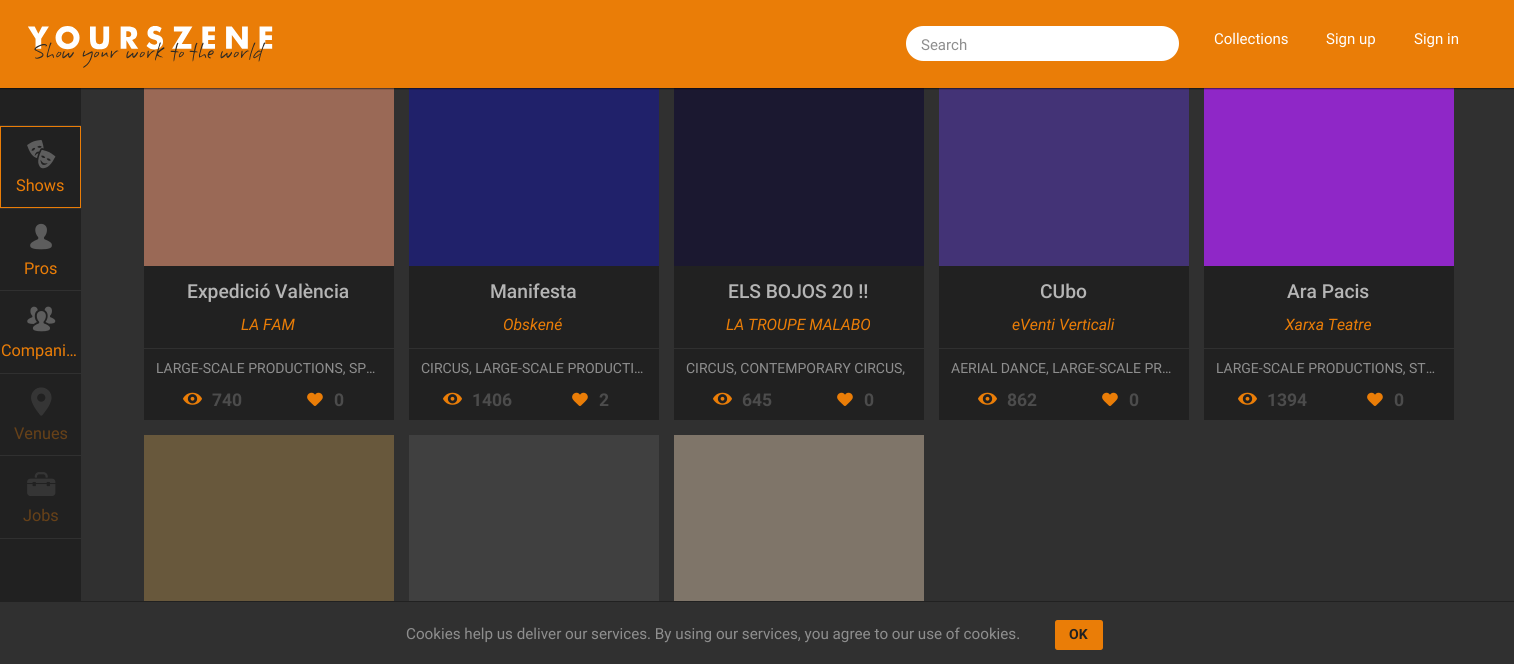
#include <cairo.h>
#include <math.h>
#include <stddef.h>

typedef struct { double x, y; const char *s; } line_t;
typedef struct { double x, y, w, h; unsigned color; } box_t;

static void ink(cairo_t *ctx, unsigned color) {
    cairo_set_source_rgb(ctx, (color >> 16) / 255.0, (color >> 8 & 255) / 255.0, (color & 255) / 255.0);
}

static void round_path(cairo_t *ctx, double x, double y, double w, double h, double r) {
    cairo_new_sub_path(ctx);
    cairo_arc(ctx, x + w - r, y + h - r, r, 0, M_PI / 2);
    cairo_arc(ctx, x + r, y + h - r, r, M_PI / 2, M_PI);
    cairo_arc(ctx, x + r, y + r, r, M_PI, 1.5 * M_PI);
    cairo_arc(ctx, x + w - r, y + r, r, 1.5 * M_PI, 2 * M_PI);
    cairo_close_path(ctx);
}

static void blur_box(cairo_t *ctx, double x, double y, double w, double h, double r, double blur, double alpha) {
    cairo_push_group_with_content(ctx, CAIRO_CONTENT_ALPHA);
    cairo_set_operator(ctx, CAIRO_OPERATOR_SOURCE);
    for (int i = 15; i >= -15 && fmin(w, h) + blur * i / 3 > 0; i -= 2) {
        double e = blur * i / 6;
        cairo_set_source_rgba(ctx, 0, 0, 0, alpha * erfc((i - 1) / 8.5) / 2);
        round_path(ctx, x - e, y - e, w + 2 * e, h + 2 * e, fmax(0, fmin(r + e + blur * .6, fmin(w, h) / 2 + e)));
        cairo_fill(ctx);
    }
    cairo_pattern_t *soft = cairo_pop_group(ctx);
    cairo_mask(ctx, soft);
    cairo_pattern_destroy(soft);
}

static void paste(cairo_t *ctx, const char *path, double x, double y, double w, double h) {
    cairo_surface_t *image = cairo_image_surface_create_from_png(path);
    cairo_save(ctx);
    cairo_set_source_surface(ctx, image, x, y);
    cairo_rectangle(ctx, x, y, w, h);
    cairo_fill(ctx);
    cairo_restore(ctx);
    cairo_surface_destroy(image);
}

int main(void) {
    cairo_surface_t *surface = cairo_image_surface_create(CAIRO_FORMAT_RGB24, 1514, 664);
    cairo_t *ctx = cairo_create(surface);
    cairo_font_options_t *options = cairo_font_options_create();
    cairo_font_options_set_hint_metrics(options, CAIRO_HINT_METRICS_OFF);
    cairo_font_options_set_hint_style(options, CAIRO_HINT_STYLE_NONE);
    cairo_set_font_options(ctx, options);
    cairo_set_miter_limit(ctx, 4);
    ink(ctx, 0x303030);
    cairo_paint(ctx);
    {
        static const box_t items[] = {
            {0, 88, 81, 513, 0x212121},
            {144, 88, 250, 178, 0x9A6956},
            {409, 88, 250, 178, 0x20216A},
            {674, 88, 250, 178, 0x1B1830},
            {939, 88, 250, 178, 0x433376},
            {1204, 88, 250, 178, 0x8F27C7},
        };
        for (size_t i = 0; i < sizeof items / sizeof *items; i++) {
            ink(ctx, items[i].color);
            cairo_rectangle(ctx, items[i].x, items[i].y, items[i].w, items[i].h);
            cairo_fill(ctx);
        }
    }
    ink(ctx, 0x000000);
    blur_box(ctx, 0, 1, 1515, 88, 0, 0.5, 0.5);
    ink(ctx, 0xEA7D07);
    cairo_rectangle(ctx, 0, 0, 1514, 88);
    cairo_fill(ctx);
    paste(ctx, "media/1.png", 28, 26, 245, 42);
    ink(ctx, 0xFFFFFF);
    round_path(ctx, 906, 26, 273, 35, 17.5);
    cairo_fill(ctx);
    cairo_select_font_face(ctx, "Roboto", CAIRO_FONT_SLANT_NORMAL, CAIRO_FONT_WEIGHT_NORMAL);
    cairo_set_font_size(ctx, 15);
    ink(ctx, 0x8E8E8E);
    cairo_move_to(ctx, 921, 50);
    cairo_show_text(ctx, "Search");
    ink(ctx, 0xFFFFFF);
    {
        static const line_t items[] = {
            {1214, 44, "Collections"},
            {1326, 44, "Sign up"},
            {1414, 44, "Sign in"},
        };
        for (size_t i = 0; i < sizeof items / sizeof *items; i++) {
            cairo_move_to(ctx, items[i].x, items[i].y);
            cairo_show_text(ctx, items[i].s);
        }
    }
    ink(ctx, 0x303030);
    cairo_rectangle(ctx, 0, 125, 81, 1);
    cairo_fill(ctx);
    cairo_rectangle(ctx, 0.5, 126.5, 80, 81);
    ink(ctx, 0xEA7D07);
    cairo_set_line_width(ctx, 1);
    cairo_stroke(ctx);
    paste(ctx, "media/2.png", 27, 140, 29, 29);
    cairo_set_font_size(ctx, 16.25);
    cairo_move_to(ctx, 16, 191);
    cairo_show_text(ctx, "Shows");
    ink(ctx, 0x303030);
    cairo_rectangle(ctx, 0, 208, 81, 1);
    cairo_fill(ctx);
    paste(ctx, "media/3.png", 30, 223, 22, 27);
    ink(ctx, 0xEA7D07);
    cairo_move_to(ctx, 24, 274);
    cairo_show_text(ctx, "Pros");
    ink(ctx, 0x303030);
    cairo_rectangle(ctx, 0, 290, 81, 1);
    cairo_fill(ctx);
    paste(ctx, "media/4.png", 27, 306, 29, 26);
    ink(ctx, 0xEA7D07);
    cairo_move_to(ctx, 1, 356);
    cairo_show_text(ctx, "Compani…");
    ink(ctx, 0x303030);
    cairo_rectangle(ctx, 0, 373, 81, 1);
    cairo_fill(ctx);
    paste(ctx, "media/5.png", 31, 387, 21, 29);
    ink(ctx, 0x674118);
    cairo_move_to(ctx, 14, 439);
    cairo_show_text(ctx, "Venues");
    ink(ctx, 0x303030);
    cairo_rectangle(ctx, 0, 455, 81, 1);
    cairo_fill(ctx);
    paste(ctx, "media/6.png", 27, 472, 29, 24);
    ink(ctx, 0x674118);
    cairo_move_to(ctx, 23, 521);
    cairo_show_text(ctx, "Jobs");
    ink(ctx, 0x303030);
    cairo_rectangle(ctx, 0, 538, 81, 1);
    cairo_fill(ctx);
    ink(ctx, 0x212121);
    cairo_rectangle(ctx, 144, 266, 250, 154);
    cairo_fill(ctx);
    cairo_select_font_face(ctx, "Roboto Medium", CAIRO_FONT_SLANT_NORMAL, CAIRO_FONT_WEIGHT_NORMAL);
    cairo_set_font_size(ctx, 19.25);
    ink(ctx, 0xB5B5B5);
    cairo_move_to(ctx, 187, 298);
    cairo_show_text(ctx, "Expedició València");
    cairo_select_font_face(ctx, "Roboto", CAIRO_FONT_SLANT_ITALIC, CAIRO_FONT_WEIGHT_NORMAL);
    cairo_set_font_size(ctx, 15.75);
    ink(ctx, 0xEA7D07);
    cairo_move_to(ctx, 241, 330);
    cairo_show_text(ctx, "LA FAM");
    ink(ctx, 0x303030);
    cairo_rectangle(ctx, 144, 348, 250, 1);
    cairo_fill(ctx);
    cairo_select_font_face(ctx, "Roboto", CAIRO_FONT_SLANT_NORMAL, CAIRO_FONT_WEIGHT_NORMAL);
    cairo_set_font_size(ctx, 14);
    ink(ctx, 0x8E8E8E);
    cairo_move_to(ctx, 156, 373);
    cairo_show_text(ctx, "LARGE-SCALE PRODUCTIONS, SP…");
    paste(ctx, "media/7.png", 183, 392, 19, 13);
    cairo_select_font_face(ctx, "Roboto", CAIRO_FONT_SLANT_NORMAL, CAIRO_FONT_WEIGHT_BOLD);
    cairo_set_font_size(ctx, 17.5);
    ink(ctx, 0x4C4C4C);
    cairo_move_to(ctx, 212, 406);
    cairo_show_text(ctx, "740");
    paste(ctx, "media/8.png", 307, 392, 16, 14);
    cairo_move_to(ctx, 334, 406);
    cairo_show_text(ctx, "0");
    ink(ctx, 0x212121);
    cairo_rectangle(ctx, 409, 266, 250, 154);
    cairo_fill(ctx);
    cairo_select_font_face(ctx, "Roboto Medium", CAIRO_FONT_SLANT_NORMAL, CAIRO_FONT_WEIGHT_NORMAL);
    cairo_set_font_size(ctx, 19.25);
    ink(ctx, 0xB5B5B5);
    cairo_move_to(ctx, 490, 298);
    cairo_show_text(ctx, "Manifesta");
    cairo_select_font_face(ctx, "Roboto", CAIRO_FONT_SLANT_ITALIC, CAIRO_FONT_WEIGHT_NORMAL);
    cairo_set_font_size(ctx, 15.75);
    ink(ctx, 0xEA7D07);
    cairo_move_to(ctx, 503, 330);
    cairo_show_text(ctx, "Obskené");
    ink(ctx, 0x303030);
    cairo_rectangle(ctx, 409, 348, 250, 1);
    cairo_fill(ctx);
    cairo_select_font_face(ctx, "Roboto", CAIRO_FONT_SLANT_NORMAL, CAIRO_FONT_WEIGHT_NORMAL);
    cairo_set_font_size(ctx, 14);
    ink(ctx, 0x8E8E8E);
    cairo_move_to(ctx, 421, 373);
    cairo_show_text(ctx, "CIRCUS, LARGE-SCALE PRODUCTI…");
    paste(ctx, "media/7.png", 443, 392, 19, 13);
    cairo_select_font_face(ctx, "Roboto", CAIRO_FONT_SLANT_NORMAL, CAIRO_FONT_WEIGHT_BOLD);
    cairo_set_font_size(ctx, 17.5);
    ink(ctx, 0x4C4C4C);
    cairo_move_to(ctx, 472, 406);
    cairo_show_text(ctx, "1406");
    paste(ctx, "media/8.png", 572, 392, 16, 14);
    cairo_move_to(ctx, 599, 406);
    cairo_show_text(ctx, "2");
    ink(ctx, 0x212121);
    cairo_rectangle(ctx, 674, 266, 250, 154);
    cairo_fill(ctx);
    cairo_select_font_face(ctx, "Roboto Medium", CAIRO_FONT_SLANT_NORMAL, CAIRO_FONT_WEIGHT_NORMAL);
    cairo_set_font_size(ctx, 19.25);
    ink(ctx, 0xB5B5B5);
    cairo_move_to(ctx, 728, 298);
    cairo_show_text(ctx, "ELS BOJOS 20 !!");
    cairo_select_font_face(ctx, "Roboto", CAIRO_FONT_SLANT_ITALIC, CAIRO_FONT_WEIGHT_NORMAL);
    cairo_set_font_size(ctx, 15.75);
    ink(ctx, 0xEA7D07);
    cairo_move_to(ctx, 726, 330);
    cairo_show_text(ctx, "LA TROUPE MALABO");
    ink(ctx, 0x303030);
    cairo_rectangle(ctx, 674, 348, 250, 1);
    cairo_fill(ctx);
    cairo_select_font_face(ctx, "Roboto", CAIRO_FONT_SLANT_NORMAL, CAIRO_FONT_WEIGHT_NORMAL);
    cairo_set_font_size(ctx, 14);
    ink(ctx, 0x8E8E8E);
    cairo_move_to(ctx, 686, 373);
    cairo_show_text(ctx, "CIRCUS, CONTEMPORARY CIRCUS,");
    paste(ctx, "media/7.png", 713, 392, 19, 13);
    cairo_select_font_face(ctx, "Roboto", CAIRO_FONT_SLANT_NORMAL, CAIRO_FONT_WEIGHT_BOLD);
    cairo_set_font_size(ctx, 17.5);
    ink(ctx, 0x4C4C4C);
    cairo_move_to(ctx, 742, 406);
    cairo_show_text(ctx, "645");
    paste(ctx, "media/8.png", 837, 392, 16, 14);
    cairo_move_to(ctx, 864, 406);
    cairo_show_text(ctx, "0");
    ink(ctx, 0x212121);
    cairo_rectangle(ctx, 939, 266, 250, 154);
    cairo_fill(ctx);
    cairo_select_font_face(ctx, "Roboto Medium", CAIRO_FONT_SLANT_NORMAL, CAIRO_FONT_WEIGHT_NORMAL);
    cairo_set_font_size(ctx, 19.25);
    ink(ctx, 0xB5B5B5);
    cairo_move_to(ctx, 1040, 298);
    cairo_show_text(ctx, "CUbo");
    cairo_select_font_face(ctx, "Roboto", CAIRO_FONT_SLANT_ITALIC, CAIRO_FONT_WEIGHT_NORMAL);
    cairo_set_font_size(ctx, 15.75);
    ink(ctx, 0xEA7D07);
    cairo_move_to(ctx, 1012, 330);
    cairo_show_text(ctx, "eVenti Verticali");
    ink(ctx, 0x303030);
    cairo_rectangle(ctx, 939, 348, 250, 1);
    cairo_fill(ctx);
    cairo_select_font_face(ctx, "Roboto", CAIRO_FONT_SLANT_NORMAL, CAIRO_FONT_WEIGHT_NORMAL);
    cairo_set_font_size(ctx, 14);
    ink(ctx, 0x8E8E8E);
    cairo_move_to(ctx, 951, 373);
    cairo_show_text(ctx, "AERIAL DANCE, LARGE-SCALE PR…");
    paste(ctx, "media/7.png", 978, 392, 19, 13);
    cairo_select_font_face(ctx, "Roboto", CAIRO_FONT_SLANT_NORMAL, CAIRO_FONT_WEIGHT_BOLD);
    cairo_set_font_size(ctx, 17.5);
    ink(ctx, 0x4C4C4C);
    cairo_move_to(ctx, 1007, 406);
    cairo_show_text(ctx, "862");
    paste(ctx, "media/8.png", 1102, 392, 16, 14);
    cairo_move_to(ctx, 1129, 406);
    cairo_show_text(ctx, "0");
    ink(ctx, 0x212121);
    cairo_rectangle(ctx, 1204, 266, 250, 154);
    cairo_fill(ctx);
    cairo_select_font_face(ctx, "Roboto Medium", CAIRO_FONT_SLANT_NORMAL, CAIRO_FONT_WEIGHT_NORMAL);
    cairo_set_font_size(ctx, 19.25);
    ink(ctx, 0xB5B5B5);
    cairo_move_to(ctx, 1287, 298);
    cairo_show_text(ctx, "Ara Pacis");
    cairo_select_font_face(ctx, "Roboto", CAIRO_FONT_SLANT_ITALIC, CAIRO_FONT_WEIGHT_NORMAL);
    cairo_set_font_size(ctx, 15.75);
    ink(ctx, 0xEA7D07);
    cairo_move_to(ctx, 1285, 330);
    cairo_show_text(ctx, "Xarxa Teatre");
    ink(ctx, 0x303030);
    cairo_rectangle(ctx, 1204, 348, 250, 1);
    cairo_fill(ctx);
    cairo_select_font_face(ctx, "Roboto", CAIRO_FONT_SLANT_NORMAL, CAIRO_FONT_WEIGHT_NORMAL);
    cairo_set_font_size(ctx, 14);
    ink(ctx, 0x8E8E8E);
    cairo_move_to(ctx, 1216, 373);
    cairo_show_text(ctx, "LARGE-SCALE PRODUCTIONS, ST…");
    paste(ctx, "media/7.png", 1238, 392, 19, 13);
    cairo_select_font_face(ctx, "Roboto", CAIRO_FONT_SLANT_NORMAL, CAIRO_FONT_WEIGHT_BOLD);
    cairo_set_font_size(ctx, 17.5);
    ink(ctx, 0x4C4C4C);
    cairo_move_to(ctx, 1267, 406);
    cairo_show_text(ctx, "1394");
    paste(ctx, "media/8.png", 1367, 392, 16, 14);
    cairo_move_to(ctx, 1394, 406);
    cairo_show_text(ctx, "0");
    {
        static const box_t items[] = {
            {144, 435, 250, 166, 0x68583C},
            {409, 435, 250, 166, 0x404040},
            {674, 435, 250, 166, 0x7F7569},
            {0, 601, 1514, 1, 0x212121},
        };
        for (size_t i = 0; i < sizeof items / sizeof *items; i++) {
            ink(ctx, items[i].color);
            cairo_rectangle(ctx, items[i].x, items[i].y, items[i].w, items[i].h);
            cairo_fill(ctx);
        }
    }
    cairo_select_font_face(ctx, "Roboto", CAIRO_FONT_SLANT_NORMAL, CAIRO_FONT_WEIGHT_NORMAL);
    cairo_set_font_size(ctx, 15.2);
    ink(ctx, 0x8E8E8E);
    cairo_move_to(ctx, 406, 639);
    cairo_show_text(ctx, "Cookies help us deliver our services. By using our services, you agree to our use of cookies.");
    ink(ctx, 0xEA7D07);
    round_path(ctx, 1055, 620, 48, 30, 2.5);
    cairo_fill(ctx);
    cairo_select_font_face(ctx, "Roboto", CAIRO_FONT_SLANT_NORMAL, CAIRO_FONT_WEIGHT_BOLD);
    cairo_set_font_size(ctx, 14);
    ink(ctx, 0x212121);
    cairo_move_to(ctx, 1069, 639);
    cairo_show_text(ctx, "OK");
    cairo_surface_write_to_png(surface, "image.png");
    cairo_font_options_destroy(options);
    cairo_destroy(ctx);
    cairo_surface_destroy(surface);
    return 0;
}
